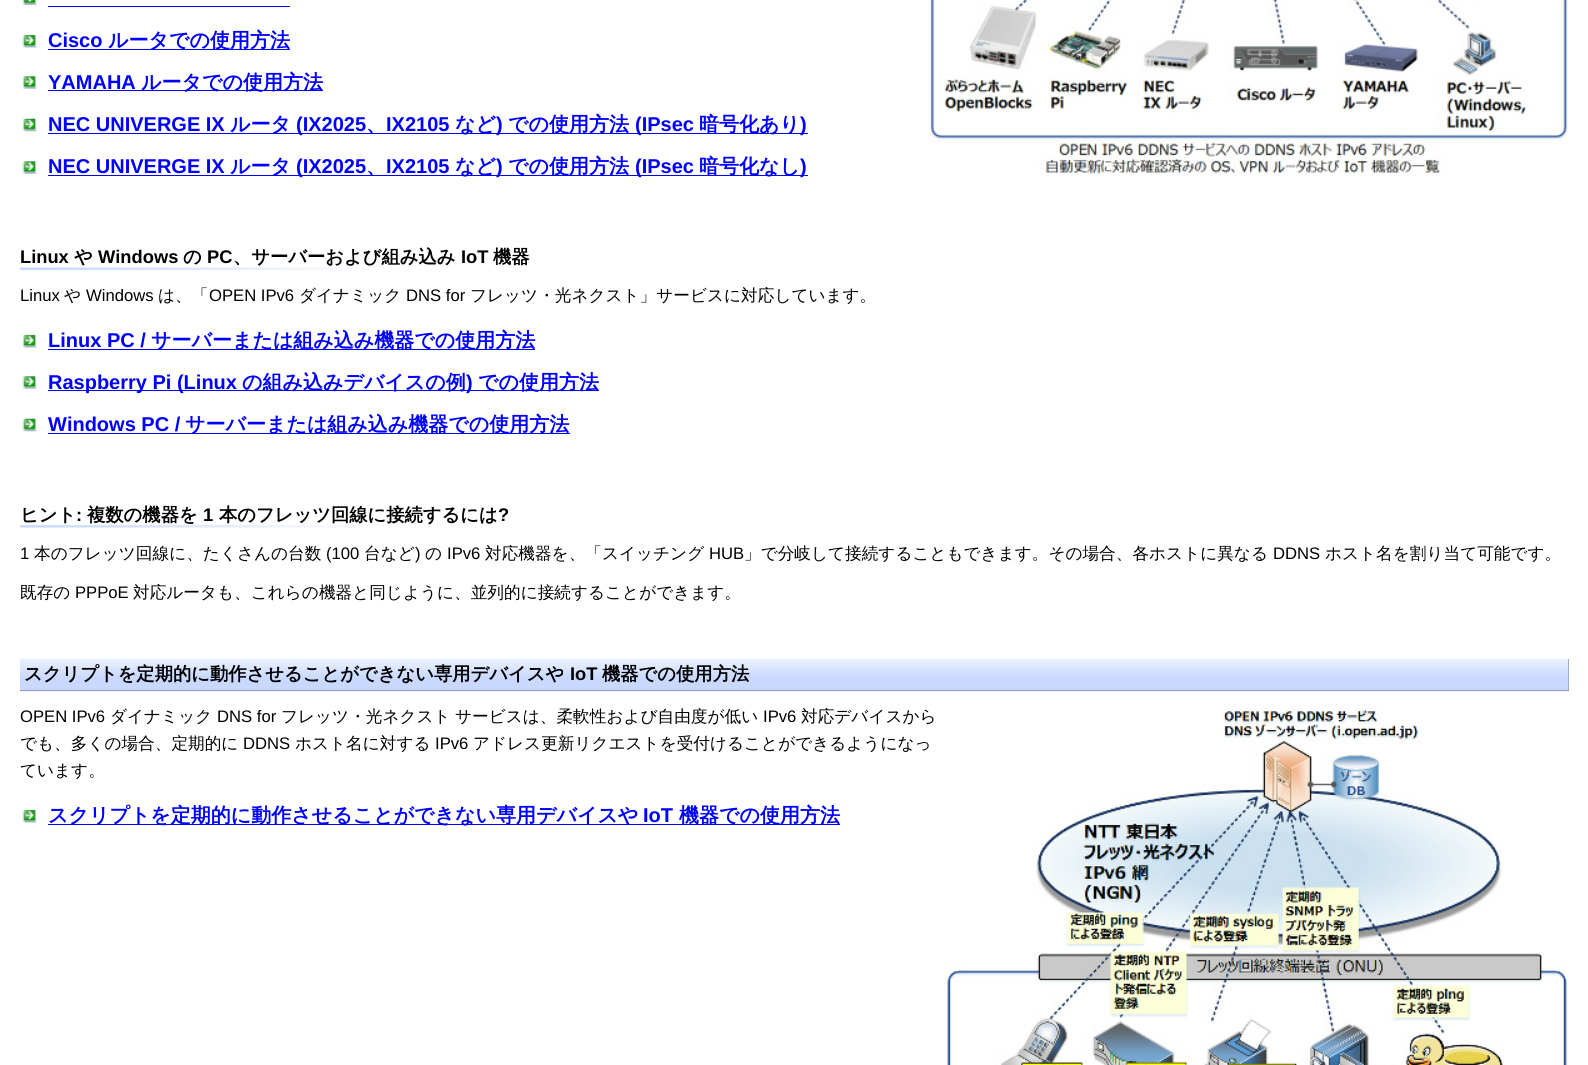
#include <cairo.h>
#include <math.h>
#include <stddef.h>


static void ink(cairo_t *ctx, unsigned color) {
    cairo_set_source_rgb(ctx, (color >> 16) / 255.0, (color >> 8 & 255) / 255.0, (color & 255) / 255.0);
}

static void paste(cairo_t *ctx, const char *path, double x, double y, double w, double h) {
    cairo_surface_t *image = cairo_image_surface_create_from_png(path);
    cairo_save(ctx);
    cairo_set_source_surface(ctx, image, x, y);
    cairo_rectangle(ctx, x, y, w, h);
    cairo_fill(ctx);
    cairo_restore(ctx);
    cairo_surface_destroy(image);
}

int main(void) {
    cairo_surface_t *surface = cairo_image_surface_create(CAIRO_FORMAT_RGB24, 1588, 1065);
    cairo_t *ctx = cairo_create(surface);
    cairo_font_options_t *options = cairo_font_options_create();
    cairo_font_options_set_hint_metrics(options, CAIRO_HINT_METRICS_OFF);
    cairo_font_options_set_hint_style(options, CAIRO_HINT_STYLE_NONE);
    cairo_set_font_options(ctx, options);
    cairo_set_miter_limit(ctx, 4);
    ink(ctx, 0xFFFFFF);
    cairo_paint(ctx);
    paste(ctx, "media/1.png", 22, 0, 15, 5);
    ink(ctx, 0x0000FF);
    cairo_rectangle(ctx, 48, 6, 242, 1);
    cairo_fill(ctx);
    paste(ctx, "media/2.png", 22, 34, 15, 14);
    cairo_select_font_face(ctx, "Liberation Sans", CAIRO_FONT_SLANT_NORMAL, CAIRO_FONT_WEIGHT_BOLD);
    cairo_set_font_size(ctx, 20);
    cairo_move_to(ctx, 48, 47);
    cairo_show_text(ctx, "Cisco");
    cairo_rectangle(ctx, 48, 49, 242, 1);
    cairo_fill(ctx);
    cairo_select_font_face(ctx, "WenQuanYi Zen Hei", CAIRO_FONT_SLANT_NORMAL, CAIRO_FONT_WEIGHT_BOLD);
    cairo_move_to(ctx, 108, 47);
    cairo_show_text(ctx, "ルータでの使用方法");
    paste(ctx, "media/3.png", 22, 75, 15, 14);
    cairo_select_font_face(ctx, "Liberation Sans", CAIRO_FONT_SLANT_NORMAL, CAIRO_FONT_WEIGHT_BOLD);
    cairo_move_to(ctx, 48, 89);
    cairo_show_text(ctx, "YAMAHA");
    cairo_rectangle(ctx, 48, 90, 275, 1);
    cairo_fill(ctx);
    cairo_select_font_face(ctx, "WenQuanYi Zen Hei", CAIRO_FONT_SLANT_NORMAL, CAIRO_FONT_WEIGHT_BOLD);
    cairo_move_to(ctx, 141, 89);
    cairo_show_text(ctx, "ルータでの使用方法");
    paste(ctx, "media/4.png", 22, 118, 15, 14);
    cairo_select_font_face(ctx, "Liberation Sans", CAIRO_FONT_SLANT_NORMAL, CAIRO_FONT_WEIGHT_BOLD);
    cairo_move_to(ctx, 48, 131);
    cairo_show_text(ctx, "NEC UNIVERGE IX");
    cairo_rectangle(ctx, 48, 133, 760, 1);
    cairo_fill(ctx);
    cairo_select_font_face(ctx, "WenQuanYi Zen Hei", CAIRO_FONT_SLANT_NORMAL, CAIRO_FONT_WEIGHT_BOLD);
    cairo_move_to(ctx, 230, 131);
    cairo_show_text(ctx, "ルータ");
    cairo_select_font_face(ctx, "Liberation Sans", CAIRO_FONT_SLANT_NORMAL, CAIRO_FONT_WEIGHT_BOLD);
    cairo_move_to(ctx, 296, 131);
    cairo_show_text(ctx, "(IX2025");
    cairo_select_font_face(ctx, "WenQuanYi Zen Hei", CAIRO_FONT_SLANT_NORMAL, CAIRO_FONT_WEIGHT_BOLD);
    cairo_move_to(ctx, 366, 131);
    cairo_show_text(ctx, "、");
    cairo_select_font_face(ctx, "Liberation Sans", CAIRO_FONT_SLANT_NORMAL, CAIRO_FONT_WEIGHT_BOLD);
    cairo_move_to(ctx, 386, 131);
    cairo_show_text(ctx, "IX2105");
    cairo_select_font_face(ctx, "WenQuanYi Zen Hei", CAIRO_FONT_SLANT_NORMAL, CAIRO_FONT_WEIGHT_BOLD);
    cairo_move_to(ctx, 455, 131);
    cairo_show_text(ctx, "など");
    cairo_select_font_face(ctx, "Liberation Sans", CAIRO_FONT_SLANT_NORMAL, CAIRO_FONT_WEIGHT_BOLD);
    cairo_move_to(ctx, 496, 131);
    cairo_show_text(ctx, ")");
    cairo_select_font_face(ctx, "WenQuanYi Zen Hei", CAIRO_FONT_SLANT_NORMAL, CAIRO_FONT_WEIGHT_BOLD);
    cairo_move_to(ctx, 508, 131);
    cairo_show_text(ctx, "での使用方法");
    cairo_select_font_face(ctx, "Liberation Sans", CAIRO_FONT_SLANT_NORMAL, CAIRO_FONT_WEIGHT_BOLD);
    cairo_move_to(ctx, 635, 131);
    cairo_show_text(ctx, "(IPsec");
    cairo_select_font_face(ctx, "WenQuanYi Zen Hei", CAIRO_FONT_SLANT_NORMAL, CAIRO_FONT_WEIGHT_BOLD);
    cairo_move_to(ctx, 699, 131);
    cairo_show_text(ctx, "暗号化あり");
    cairo_select_font_face(ctx, "Liberation Sans", CAIRO_FONT_SLANT_NORMAL, CAIRO_FONT_WEIGHT_BOLD);
    cairo_move_to(ctx, 800, 131);
    cairo_show_text(ctx, ")");
    paste(ctx, "media/3.png", 22, 160, 15, 14);
    cairo_move_to(ctx, 48, 173);
    cairo_show_text(ctx, "NEC UNIVERGE IX");
    cairo_rectangle(ctx, 48, 175, 760, 1);
    cairo_fill(ctx);
    cairo_select_font_face(ctx, "WenQuanYi Zen Hei", CAIRO_FONT_SLANT_NORMAL, CAIRO_FONT_WEIGHT_BOLD);
    cairo_move_to(ctx, 230, 173);
    cairo_show_text(ctx, "ルータ");
    cairo_select_font_face(ctx, "Liberation Sans", CAIRO_FONT_SLANT_NORMAL, CAIRO_FONT_WEIGHT_BOLD);
    cairo_move_to(ctx, 296, 173);
    cairo_show_text(ctx, "(IX2025");
    cairo_select_font_face(ctx, "WenQuanYi Zen Hei", CAIRO_FONT_SLANT_NORMAL, CAIRO_FONT_WEIGHT_BOLD);
    cairo_move_to(ctx, 366, 173);
    cairo_show_text(ctx, "、");
    cairo_select_font_face(ctx, "Liberation Sans", CAIRO_FONT_SLANT_NORMAL, CAIRO_FONT_WEIGHT_BOLD);
    cairo_move_to(ctx, 386, 173);
    cairo_show_text(ctx, "IX2105");
    cairo_select_font_face(ctx, "WenQuanYi Zen Hei", CAIRO_FONT_SLANT_NORMAL, CAIRO_FONT_WEIGHT_BOLD);
    cairo_move_to(ctx, 455, 173);
    cairo_show_text(ctx, "など");
    cairo_select_font_face(ctx, "Liberation Sans", CAIRO_FONT_SLANT_NORMAL, CAIRO_FONT_WEIGHT_BOLD);
    cairo_move_to(ctx, 496, 173);
    cairo_show_text(ctx, ")");
    cairo_select_font_face(ctx, "WenQuanYi Zen Hei", CAIRO_FONT_SLANT_NORMAL, CAIRO_FONT_WEIGHT_BOLD);
    cairo_move_to(ctx, 508, 173);
    cairo_show_text(ctx, "での使用方法");
    cairo_select_font_face(ctx, "Liberation Sans", CAIRO_FONT_SLANT_NORMAL, CAIRO_FONT_WEIGHT_BOLD);
    cairo_move_to(ctx, 635, 173);
    cairo_show_text(ctx, "(IPsec");
    cairo_select_font_face(ctx, "WenQuanYi Zen Hei", CAIRO_FONT_SLANT_NORMAL, CAIRO_FONT_WEIGHT_BOLD);
    cairo_move_to(ctx, 699, 173);
    cairo_show_text(ctx, "暗号化なし");
    cairo_select_font_face(ctx, "Liberation Sans", CAIRO_FONT_SLANT_NORMAL, CAIRO_FONT_WEIGHT_BOLD);
    cairo_move_to(ctx, 800, 173);
    cairo_show_text(ctx, ")");
    paste(ctx, "media/5.png", 929, 0, 639, 174);
    paste(ctx, "media/6.png", 20, 267, 353, 3);
    cairo_set_font_size(ctx, 18.3);
    ink(ctx, 0x000000);
    cairo_move_to(ctx, 20, 263);
    cairo_show_text(ctx, "Linux");
    cairo_select_font_face(ctx, "WenQuanYi Zen Hei", CAIRO_FONT_SLANT_NORMAL, CAIRO_FONT_WEIGHT_BOLD);
    cairo_move_to(ctx, 74, 263);
    cairo_show_text(ctx, "や");
    cairo_select_font_face(ctx, "Liberation Sans", CAIRO_FONT_SLANT_NORMAL, CAIRO_FONT_WEIGHT_BOLD);
    cairo_move_to(ctx, 98, 263);
    cairo_show_text(ctx, "Windows");
    cairo_select_font_face(ctx, "WenQuanYi Zen Hei", CAIRO_FONT_SLANT_NORMAL, CAIRO_FONT_WEIGHT_BOLD);
    cairo_move_to(ctx, 183, 263);
    cairo_show_text(ctx, "の");
    cairo_select_font_face(ctx, "Liberation Sans", CAIRO_FONT_SLANT_NORMAL, CAIRO_FONT_WEIGHT_BOLD);
    cairo_move_to(ctx, 207, 263);
    cairo_show_text(ctx, "PC");
    cairo_select_font_face(ctx, "WenQuanYi Zen Hei", CAIRO_FONT_SLANT_NORMAL, CAIRO_FONT_WEIGHT_BOLD);
    cairo_move_to(ctx, 233, 263);
    cairo_show_text(ctx, "、サーバーおよび組み込み");
    cairo_select_font_face(ctx, "Liberation Sans", CAIRO_FONT_SLANT_NORMAL, CAIRO_FONT_WEIGHT_BOLD);
    cairo_move_to(ctx, 461, 263);
    cairo_show_text(ctx, "IoT");
    cairo_select_font_face(ctx, "WenQuanYi Zen Hei", CAIRO_FONT_SLANT_NORMAL, CAIRO_FONT_WEIGHT_BOLD);
    cairo_move_to(ctx, 493, 263);
    cairo_show_text(ctx, "機器");
    cairo_select_font_face(ctx, "Liberation Sans", CAIRO_FONT_SLANT_NORMAL, CAIRO_FONT_WEIGHT_NORMAL);
    cairo_set_font_size(ctx, 16.65);
    cairo_move_to(ctx, 20, 301);
    cairo_show_text(ctx, "Linux");
    cairo_select_font_face(ctx, "WenQuanYi Zen Hei Medium", CAIRO_FONT_SLANT_NORMAL, CAIRO_FONT_WEIGHT_NORMAL);
    cairo_move_to(ctx, 64, 301);
    cairo_show_text(ctx, "や");
    cairo_select_font_face(ctx, "Liberation Sans", CAIRO_FONT_SLANT_NORMAL, CAIRO_FONT_WEIGHT_NORMAL);
    cairo_move_to(ctx, 86, 301);
    cairo_show_text(ctx, "Windows");
    cairo_select_font_face(ctx, "WenQuanYi Zen Hei Medium", CAIRO_FONT_SLANT_NORMAL, CAIRO_FONT_WEIGHT_NORMAL);
    cairo_move_to(ctx, 158, 301);
    cairo_show_text(ctx, "は、「");
    cairo_select_font_face(ctx, "Liberation Sans", CAIRO_FONT_SLANT_NORMAL, CAIRO_FONT_WEIGHT_NORMAL);
    cairo_move_to(ctx, 209, 301);
    cairo_show_text(ctx, "OPEN IPv6");
    cairo_select_font_face(ctx, "WenQuanYi Zen Hei Medium", CAIRO_FONT_SLANT_NORMAL, CAIRO_FONT_WEIGHT_NORMAL);
    cairo_move_to(ctx, 299, 301);
    cairo_show_text(ctx, "ダイナミック");
    cairo_select_font_face(ctx, "Liberation Sans", CAIRO_FONT_SLANT_NORMAL, CAIRO_FONT_WEIGHT_NORMAL);
    cairo_move_to(ctx, 406, 301);
    cairo_show_text(ctx, "DNS for");
    cairo_select_font_face(ctx, "WenQuanYi Zen Hei Medium", CAIRO_FONT_SLANT_NORMAL, CAIRO_FONT_WEIGHT_NORMAL);
    cairo_move_to(ctx, 470, 301);
    cairo_show_text(ctx, "フレッツ・光ネクスト」サービスに対応しています。");
    paste(ctx, "media/2.png", 22, 334, 15, 14);
    cairo_select_font_face(ctx, "Liberation Sans", CAIRO_FONT_SLANT_NORMAL, CAIRO_FONT_WEIGHT_BOLD);
    cairo_set_font_size(ctx, 20);
    ink(ctx, 0x0000FF);
    cairo_move_to(ctx, 48, 347);
    cairo_show_text(ctx, "Linux PC /");
    cairo_rectangle(ctx, 48, 349, 487, 1);
    cairo_fill(ctx);
    cairo_select_font_face(ctx, "WenQuanYi Zen Hei", CAIRO_FONT_SLANT_NORMAL, CAIRO_FONT_WEIGHT_BOLD);
    cairo_move_to(ctx, 151, 347);
    cairo_show_text(ctx, "サーバーまたは組み込み機器での使用方法");
    paste(ctx, "media/3.png", 22, 375, 15, 14);
    cairo_rectangle(ctx, 48, 390, 551, 1);
    cairo_fill(ctx);
    cairo_select_font_face(ctx, "Liberation Sans", CAIRO_FONT_SLANT_NORMAL, CAIRO_FONT_WEIGHT_BOLD);
    cairo_move_to(ctx, 48, 389);
    cairo_show_text(ctx, "Raspberry Pi (Linux");
    cairo_select_font_face(ctx, "WenQuanYi Zen Hei", CAIRO_FONT_SLANT_NORMAL, CAIRO_FONT_WEIGHT_BOLD);
    cairo_move_to(ctx, 242, 389);
    cairo_show_text(ctx, "の組み込みデバイスの例");
    cairo_select_font_face(ctx, "Liberation Sans", CAIRO_FONT_SLANT_NORMAL, CAIRO_FONT_WEIGHT_BOLD);
    cairo_move_to(ctx, 466, 389);
    cairo_show_text(ctx, ")");
    cairo_select_font_face(ctx, "WenQuanYi Zen Hei", CAIRO_FONT_SLANT_NORMAL, CAIRO_FONT_WEIGHT_BOLD);
    cairo_move_to(ctx, 478, 389);
    cairo_show_text(ctx, "での使用方法");
    paste(ctx, "media/4.png", 22, 418, 15, 14);
    cairo_select_font_face(ctx, "Liberation Sans", CAIRO_FONT_SLANT_NORMAL, CAIRO_FONT_WEIGHT_BOLD);
    cairo_move_to(ctx, 48, 431);
    cairo_show_text(ctx, "Windows PC /");
    cairo_rectangle(ctx, 48, 433, 522, 1);
    cairo_fill(ctx);
    cairo_select_font_face(ctx, "WenQuanYi Zen Hei", CAIRO_FONT_SLANT_NORMAL, CAIRO_FONT_WEIGHT_BOLD);
    cairo_move_to(ctx, 185, 431);
    cairo_show_text(ctx, "サーバーまたは組み込み機器での使用方法");
    paste(ctx, "media/7.png", 20, 525, 353, 3);
    cairo_set_font_size(ctx, 18.3);
    ink(ctx, 0x000000);
    cairo_move_to(ctx, 20, 521);
    cairo_show_text(ctx, "ヒント");
    cairo_select_font_face(ctx, "Liberation Sans", CAIRO_FONT_SLANT_NORMAL, CAIRO_FONT_WEIGHT_BOLD);
    cairo_move_to(ctx, 76, 521);
    cairo_show_text(ctx, ":");
    cairo_select_font_face(ctx, "WenQuanYi Zen Hei", CAIRO_FONT_SLANT_NORMAL, CAIRO_FONT_WEIGHT_BOLD);
    cairo_move_to(ctx, 87, 521);
    cairo_show_text(ctx, "複数の機器を");
    cairo_select_font_face(ctx, "Liberation Sans", CAIRO_FONT_SLANT_NORMAL, CAIRO_FONT_WEIGHT_BOLD);
    cairo_move_to(ctx, 203, 521);
    cairo_show_text(ctx, "1");
    cairo_select_font_face(ctx, "WenQuanYi Zen Hei", CAIRO_FONT_SLANT_NORMAL, CAIRO_FONT_WEIGHT_BOLD);
    cairo_move_to(ctx, 219, 521);
    cairo_show_text(ctx, "本のフレッツ回線に接続するには");
    cairo_select_font_face(ctx, "Liberation Sans", CAIRO_FONT_SLANT_NORMAL, CAIRO_FONT_WEIGHT_BOLD);
    cairo_move_to(ctx, 498, 521);
    cairo_show_text(ctx, "?");
    cairo_select_font_face(ctx, "Liberation Sans", CAIRO_FONT_SLANT_NORMAL, CAIRO_FONT_WEIGHT_NORMAL);
    cairo_set_font_size(ctx, 16.65);
    cairo_move_to(ctx, 20, 559);
    cairo_show_text(ctx, "1");
    cairo_select_font_face(ctx, "WenQuanYi Zen Hei Medium", CAIRO_FONT_SLANT_NORMAL, CAIRO_FONT_WEIGHT_NORMAL);
    cairo_move_to(ctx, 34, 559);
    cairo_show_text(ctx, "本のフレッツ回線に、たくさんの台数");
    cairo_select_font_face(ctx, "Liberation Sans", CAIRO_FONT_SLANT_NORMAL, CAIRO_FONT_WEIGHT_NORMAL);
    cairo_move_to(ctx, 326, 559);
    cairo_show_text(ctx, "(100");
    cairo_select_font_face(ctx, "WenQuanYi Zen Hei Medium", CAIRO_FONT_SLANT_NORMAL, CAIRO_FONT_WEIGHT_NORMAL);
    cairo_move_to(ctx, 364, 559);
    cairo_show_text(ctx, "台など");
    cairo_select_font_face(ctx, "Liberation Sans", CAIRO_FONT_SLANT_NORMAL, CAIRO_FONT_WEIGHT_NORMAL);
    cairo_move_to(ctx, 415, 559);
    cairo_show_text(ctx, ")");
    cairo_select_font_face(ctx, "WenQuanYi Zen Hei Medium", CAIRO_FONT_SLANT_NORMAL, CAIRO_FONT_WEIGHT_NORMAL);
    cairo_move_to(ctx, 425, 559);
    cairo_show_text(ctx, "の");
    cairo_select_font_face(ctx, "Liberation Sans", CAIRO_FONT_SLANT_NORMAL, CAIRO_FONT_WEIGHT_NORMAL);
    cairo_move_to(ctx, 447, 559);
    cairo_show_text(ctx, "IPv6");
    cairo_select_font_face(ctx, "WenQuanYi Zen Hei Medium", CAIRO_FONT_SLANT_NORMAL, CAIRO_FONT_WEIGHT_NORMAL);
    cairo_move_to(ctx, 485, 559);
    cairo_show_text(ctx, "対応機器を、「スイッチング");
    cairo_select_font_face(ctx, "Liberation Sans", CAIRO_FONT_SLANT_NORMAL, CAIRO_FONT_WEIGHT_NORMAL);
    cairo_move_to(ctx, 709, 559);
    cairo_show_text(ctx, "HUB");
    cairo_select_font_face(ctx, "WenQuanYi Zen Hei Medium", CAIRO_FONT_SLANT_NORMAL, CAIRO_FONT_WEIGHT_NORMAL);
    cairo_move_to(ctx, 744, 559);
    cairo_show_text(ctx, "」で分岐して接続することもできます。その場合、各ホストに異なる");
    cairo_select_font_face(ctx, "Liberation Sans", CAIRO_FONT_SLANT_NORMAL, CAIRO_FONT_WEIGHT_NORMAL);
    cairo_move_to(ctx, 1273, 559);
    cairo_show_text(ctx, "DDNS");
    cairo_select_font_face(ctx, "WenQuanYi Zen Hei Medium", CAIRO_FONT_SLANT_NORMAL, CAIRO_FONT_WEIGHT_NORMAL);
    cairo_move_to(ctx, 1325, 559);
    cairo_show_text(ctx, "ホスト名を割り当て可能です。");
    cairo_move_to(ctx, 20, 598);
    cairo_show_text(ctx, "既存の");
    cairo_select_font_face(ctx, "Liberation Sans", CAIRO_FONT_SLANT_NORMAL, CAIRO_FONT_WEIGHT_NORMAL);
    cairo_move_to(ctx, 75, 598);
    cairo_show_text(ctx, "PPPoE");
    cairo_select_font_face(ctx, "WenQuanYi Zen Hei Medium", CAIRO_FONT_SLANT_NORMAL, CAIRO_FONT_WEIGHT_NORMAL);
    cairo_move_to(ctx, 133, 598);
    cairo_show_text(ctx, "対応ルータも、これらの機器と同じように、並列的に接続することができます。");
    paste(ctx, "media/8.png", 20, 658, 1549, 34);
    ink(ctx, 0xA0ADCC);
    cairo_rectangle(ctx, 1568, 659, 1, 32);
    cairo_fill(ctx);
    ink(ctx, 0x909DBC);
    cairo_rectangle(ctx, 20, 690, 1549, 1);
    cairo_fill(ctx);
    cairo_select_font_face(ctx, "WenQuanYi Zen Hei", CAIRO_FONT_SLANT_NORMAL, CAIRO_FONT_WEIGHT_BOLD);
    cairo_set_font_size(ctx, 18.3);
    ink(ctx, 0x000000);
    cairo_move_to(ctx, 24, 680);
    cairo_show_text(ctx, "スクリプトを定期的に動作させることができない専用デバイスや");
    cairo_select_font_face(ctx, "Liberation Sans", CAIRO_FONT_SLANT_NORMAL, CAIRO_FONT_WEIGHT_BOLD);
    cairo_move_to(ctx, 570, 680);
    cairo_show_text(ctx, "IoT");
    cairo_select_font_face(ctx, "WenQuanYi Zen Hei", CAIRO_FONT_SLANT_NORMAL, CAIRO_FONT_WEIGHT_BOLD);
    cairo_move_to(ctx, 602, 680);
    cairo_show_text(ctx, "機器での使用方法");
    cairo_select_font_face(ctx, "Liberation Sans", CAIRO_FONT_SLANT_NORMAL, CAIRO_FONT_WEIGHT_NORMAL);
    cairo_set_font_size(ctx, 16.65);
    cairo_move_to(ctx, 20, 722);
    cairo_show_text(ctx, "OPEN IPv6");
    cairo_select_font_face(ctx, "WenQuanYi Zen Hei Medium", CAIRO_FONT_SLANT_NORMAL, CAIRO_FONT_WEIGHT_NORMAL);
    cairo_move_to(ctx, 110, 722);
    cairo_show_text(ctx, "ダイナミック");
    cairo_select_font_face(ctx, "Liberation Sans", CAIRO_FONT_SLANT_NORMAL, CAIRO_FONT_WEIGHT_NORMAL);
    cairo_move_to(ctx, 217, 722);
    cairo_show_text(ctx, "DNS for");
    cairo_select_font_face(ctx, "WenQuanYi Zen Hei Medium", CAIRO_FONT_SLANT_NORMAL, CAIRO_FONT_WEIGHT_NORMAL);
    cairo_move_to(ctx, 281, 722);
    cairo_show_text(ctx, "フレッツ・光ネクスト");
    cairo_move_to(ctx, 455, 722);
    cairo_show_text(ctx, "サービスは、柔軟性および自由度が低い");
    cairo_select_font_face(ctx, "Liberation Sans", CAIRO_FONT_SLANT_NORMAL, CAIRO_FONT_WEIGHT_NORMAL);
    cairo_move_to(ctx, 763, 722);
    cairo_show_text(ctx, "IPv6");
    cairo_select_font_face(ctx, "WenQuanYi Zen Hei Medium", CAIRO_FONT_SLANT_NORMAL, CAIRO_FONT_WEIGHT_NORMAL);
    cairo_move_to(ctx, 801, 722);
    cairo_show_text(ctx, "対応デバイスから");
    paste(ctx, "media/9.png", 944, 704, 624, 361);
    cairo_move_to(ctx, 20, 749);
    cairo_show_text(ctx, "でも、多くの場合、定期的に");
    cairo_select_font_face(ctx, "Liberation Sans", CAIRO_FONT_SLANT_NORMAL, CAIRO_FONT_WEIGHT_NORMAL);
    cairo_move_to(ctx, 243, 749);
    cairo_show_text(ctx, "DDNS");
    cairo_select_font_face(ctx, "WenQuanYi Zen Hei Medium", CAIRO_FONT_SLANT_NORMAL, CAIRO_FONT_WEIGHT_NORMAL);
    cairo_move_to(ctx, 295, 749);
    cairo_show_text(ctx, "ホスト名に対する");
    cairo_select_font_face(ctx, "Liberation Sans", CAIRO_FONT_SLANT_NORMAL, CAIRO_FONT_WEIGHT_NORMAL);
    cairo_move_to(ctx, 435, 749);
    cairo_show_text(ctx, "IPv6");
    cairo_select_font_face(ctx, "WenQuanYi Zen Hei Medium", CAIRO_FONT_SLANT_NORMAL, CAIRO_FONT_WEIGHT_NORMAL);
    cairo_move_to(ctx, 473, 749);
    cairo_show_text(ctx, "アドレス更新リクエストを受付けることができるようになっ");
    cairo_move_to(ctx, 20, 776);
    cairo_show_text(ctx, "ています。");
    paste(ctx, "media/2.png", 22, 809, 15, 14);
    ink(ctx, 0x0000FF);
    cairo_rectangle(ctx, 48, 824, 792, 1);
    cairo_fill(ctx);
    cairo_select_font_face(ctx, "WenQuanYi Zen Hei", CAIRO_FONT_SLANT_NORMAL, CAIRO_FONT_WEIGHT_BOLD);
    cairo_set_font_size(ctx, 20);
    cairo_move_to(ctx, 48, 822);
    cairo_show_text(ctx, "スクリプトを定期的に動作させることができない専用デバイスや");
    cairo_select_font_face(ctx, "Liberation Sans", CAIRO_FONT_SLANT_NORMAL, CAIRO_FONT_WEIGHT_BOLD);
    cairo_move_to(ctx, 643, 822);
    cairo_show_text(ctx, "IoT");
    cairo_select_font_face(ctx, "WenQuanYi Zen Hei", CAIRO_FONT_SLANT_NORMAL, CAIRO_FONT_WEIGHT_BOLD);
    cairo_move_to(ctx, 679, 822);
    cairo_show_text(ctx, "機器での使用方法");
    cairo_surface_write_to_png(surface, "image.png");
    cairo_font_options_destroy(options);
    cairo_destroy(ctx);
    cairo_surface_destroy(surface);
    return 0;
}
